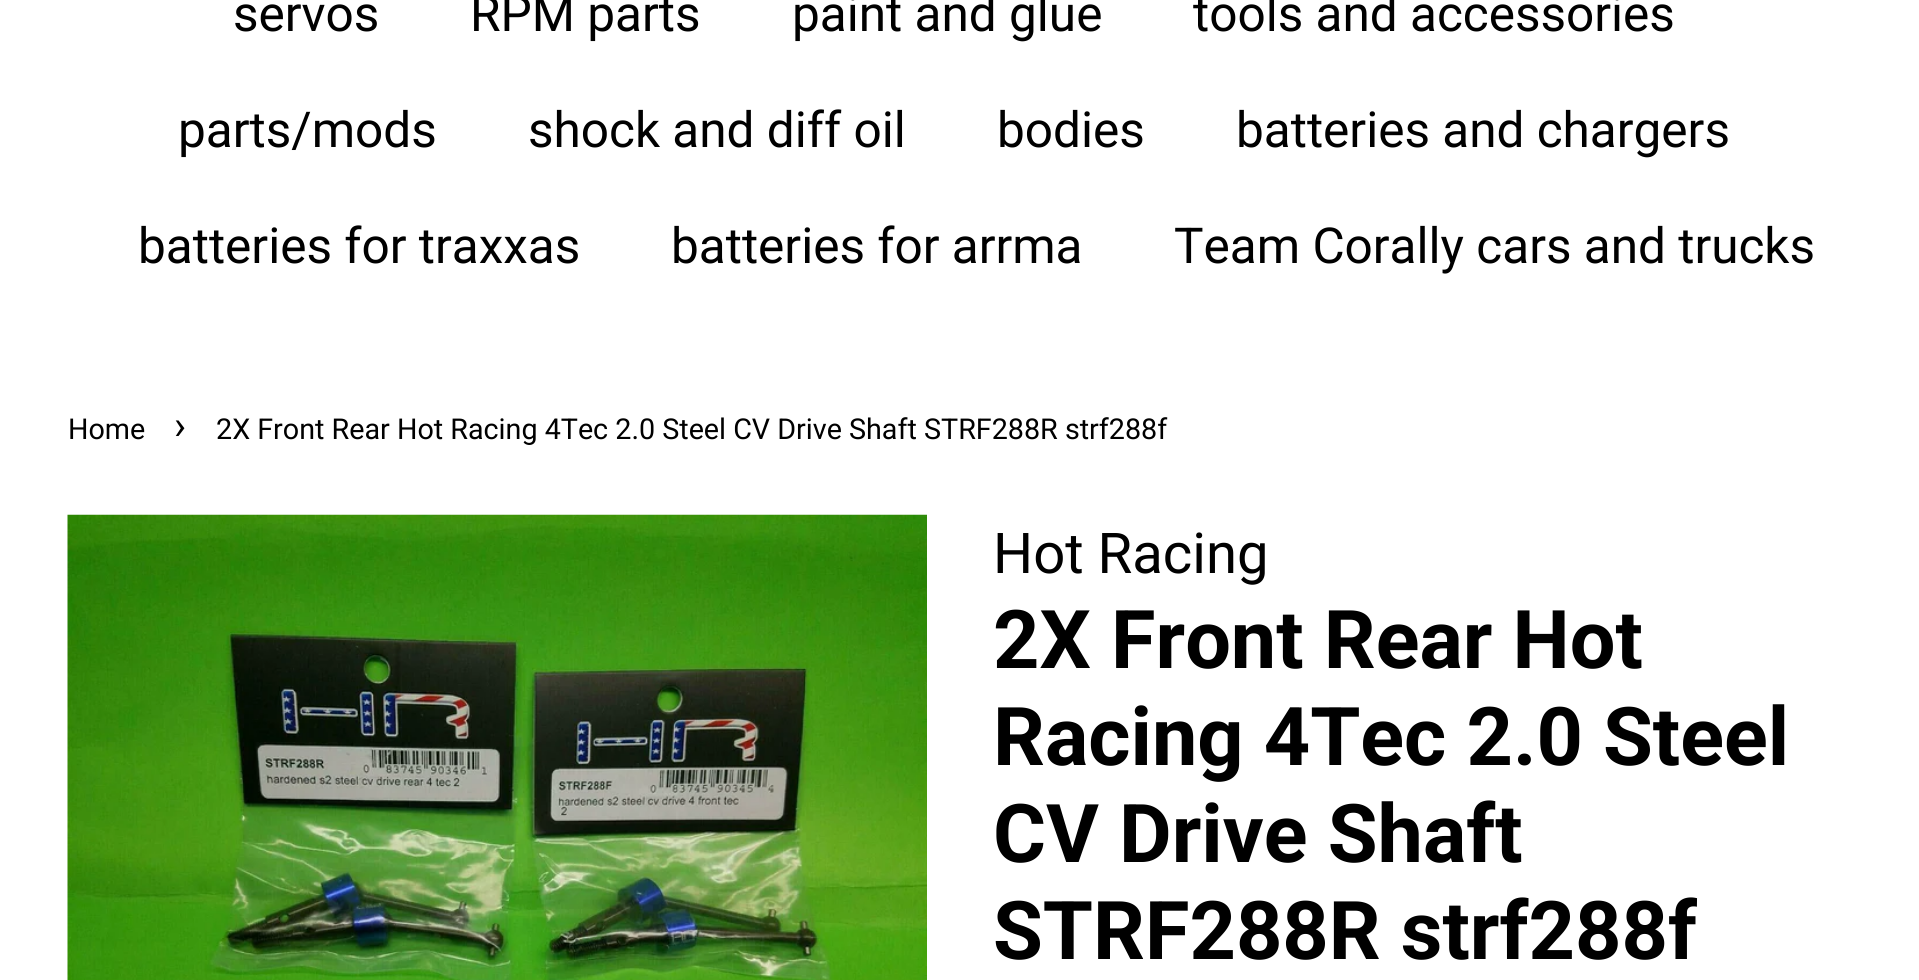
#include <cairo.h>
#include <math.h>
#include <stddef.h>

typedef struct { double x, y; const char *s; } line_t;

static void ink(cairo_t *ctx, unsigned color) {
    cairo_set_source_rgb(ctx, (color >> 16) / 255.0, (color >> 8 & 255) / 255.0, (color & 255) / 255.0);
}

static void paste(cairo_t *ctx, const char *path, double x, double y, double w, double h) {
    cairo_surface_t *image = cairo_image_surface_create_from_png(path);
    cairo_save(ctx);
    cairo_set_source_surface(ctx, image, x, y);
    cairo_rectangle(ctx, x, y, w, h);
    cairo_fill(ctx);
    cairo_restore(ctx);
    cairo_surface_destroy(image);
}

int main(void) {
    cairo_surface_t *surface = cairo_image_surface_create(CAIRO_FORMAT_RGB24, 1919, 980);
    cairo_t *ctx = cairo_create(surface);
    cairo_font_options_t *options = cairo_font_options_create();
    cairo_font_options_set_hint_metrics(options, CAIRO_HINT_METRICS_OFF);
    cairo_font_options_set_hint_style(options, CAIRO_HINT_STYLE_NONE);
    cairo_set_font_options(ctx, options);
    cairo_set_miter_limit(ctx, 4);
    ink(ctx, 0xFFFFFF);
    cairo_paint(ctx);
    cairo_select_font_face(ctx, "Roboto", CAIRO_FONT_SLANT_NORMAL, CAIRO_FONT_WEIGHT_NORMAL);
    cairo_set_font_size(ctx, 49.5);
    ink(ctx, 0x000000);
    {
        static const line_t items[] = {
            {233, 31, "servos"},
            {470, 31, "RPM parts"},
            {792, 31, "paint and glue"},
            {1193, 31, "tools and accessories"},
            {178, 147, "parts/mods"},
            {528, 147, "shock and diff oil"},
            {997, 147, "bodies"},
            {1236, 147, "batteries and chargers"},
            {138, 263, "batteries for traxxas"},
            {671, 263, "batteries for arrma"},
            {1174, 263, "Team Corally cars and trucks"},
        };
        for (size_t i = 0; i < sizeof items / sizeof *items; i++) {
            cairo_move_to(ctx, items[i].x, items[i].y);
            cairo_show_text(ctx, items[i].s);
        }
    }
    cairo_set_font_size(ctx, 28.7);
    cairo_move_to(ctx, 68, 439);
    cairo_show_text(ctx, "Home");
    cairo_set_font_size(ctx, 40);
    cairo_move_to(ctx, 174, 439);
    cairo_show_text(ctx, "›");
    cairo_set_font_size(ctx, 28.7);
    cairo_move_to(ctx, 216, 439);
    cairo_show_text(ctx, "2X Front Rear Hot Racing 4Tec 2.0 Steel CV Drive Shaft STRF288R strf288f");
    paste(ctx, "media/1.png", 67, 514, 860, 466);
    cairo_set_font_size(ctx, 56.25);
    cairo_move_to(ctx, 993, 573);
    cairo_show_text(ctx, "Hot Racing");
    cairo_select_font_face(ctx, "Roboto", CAIRO_FONT_SLANT_NORMAL, CAIRO_FONT_WEIGHT_BOLD);
    cairo_set_font_size(ctx, 81);
    {
        static const line_t items[] = {
            {993, 668, "2X Front Rear Hot"},
            {993, 765, "Racing 4Tec 2.0 Steel"},
            {993, 862, "CV Drive Shaft"},
            {993, 959, "STRF288R strf288f"},
        };
        for (size_t i = 0; i < sizeof items / sizeof *items; i++) {
            cairo_move_to(ctx, items[i].x, items[i].y);
            cairo_show_text(ctx, items[i].s);
        }
    }
    cairo_surface_write_to_png(surface, "image.png");
    cairo_font_options_destroy(options);
    cairo_destroy(ctx);
    cairo_surface_destroy(surface);
    return 0;
}
